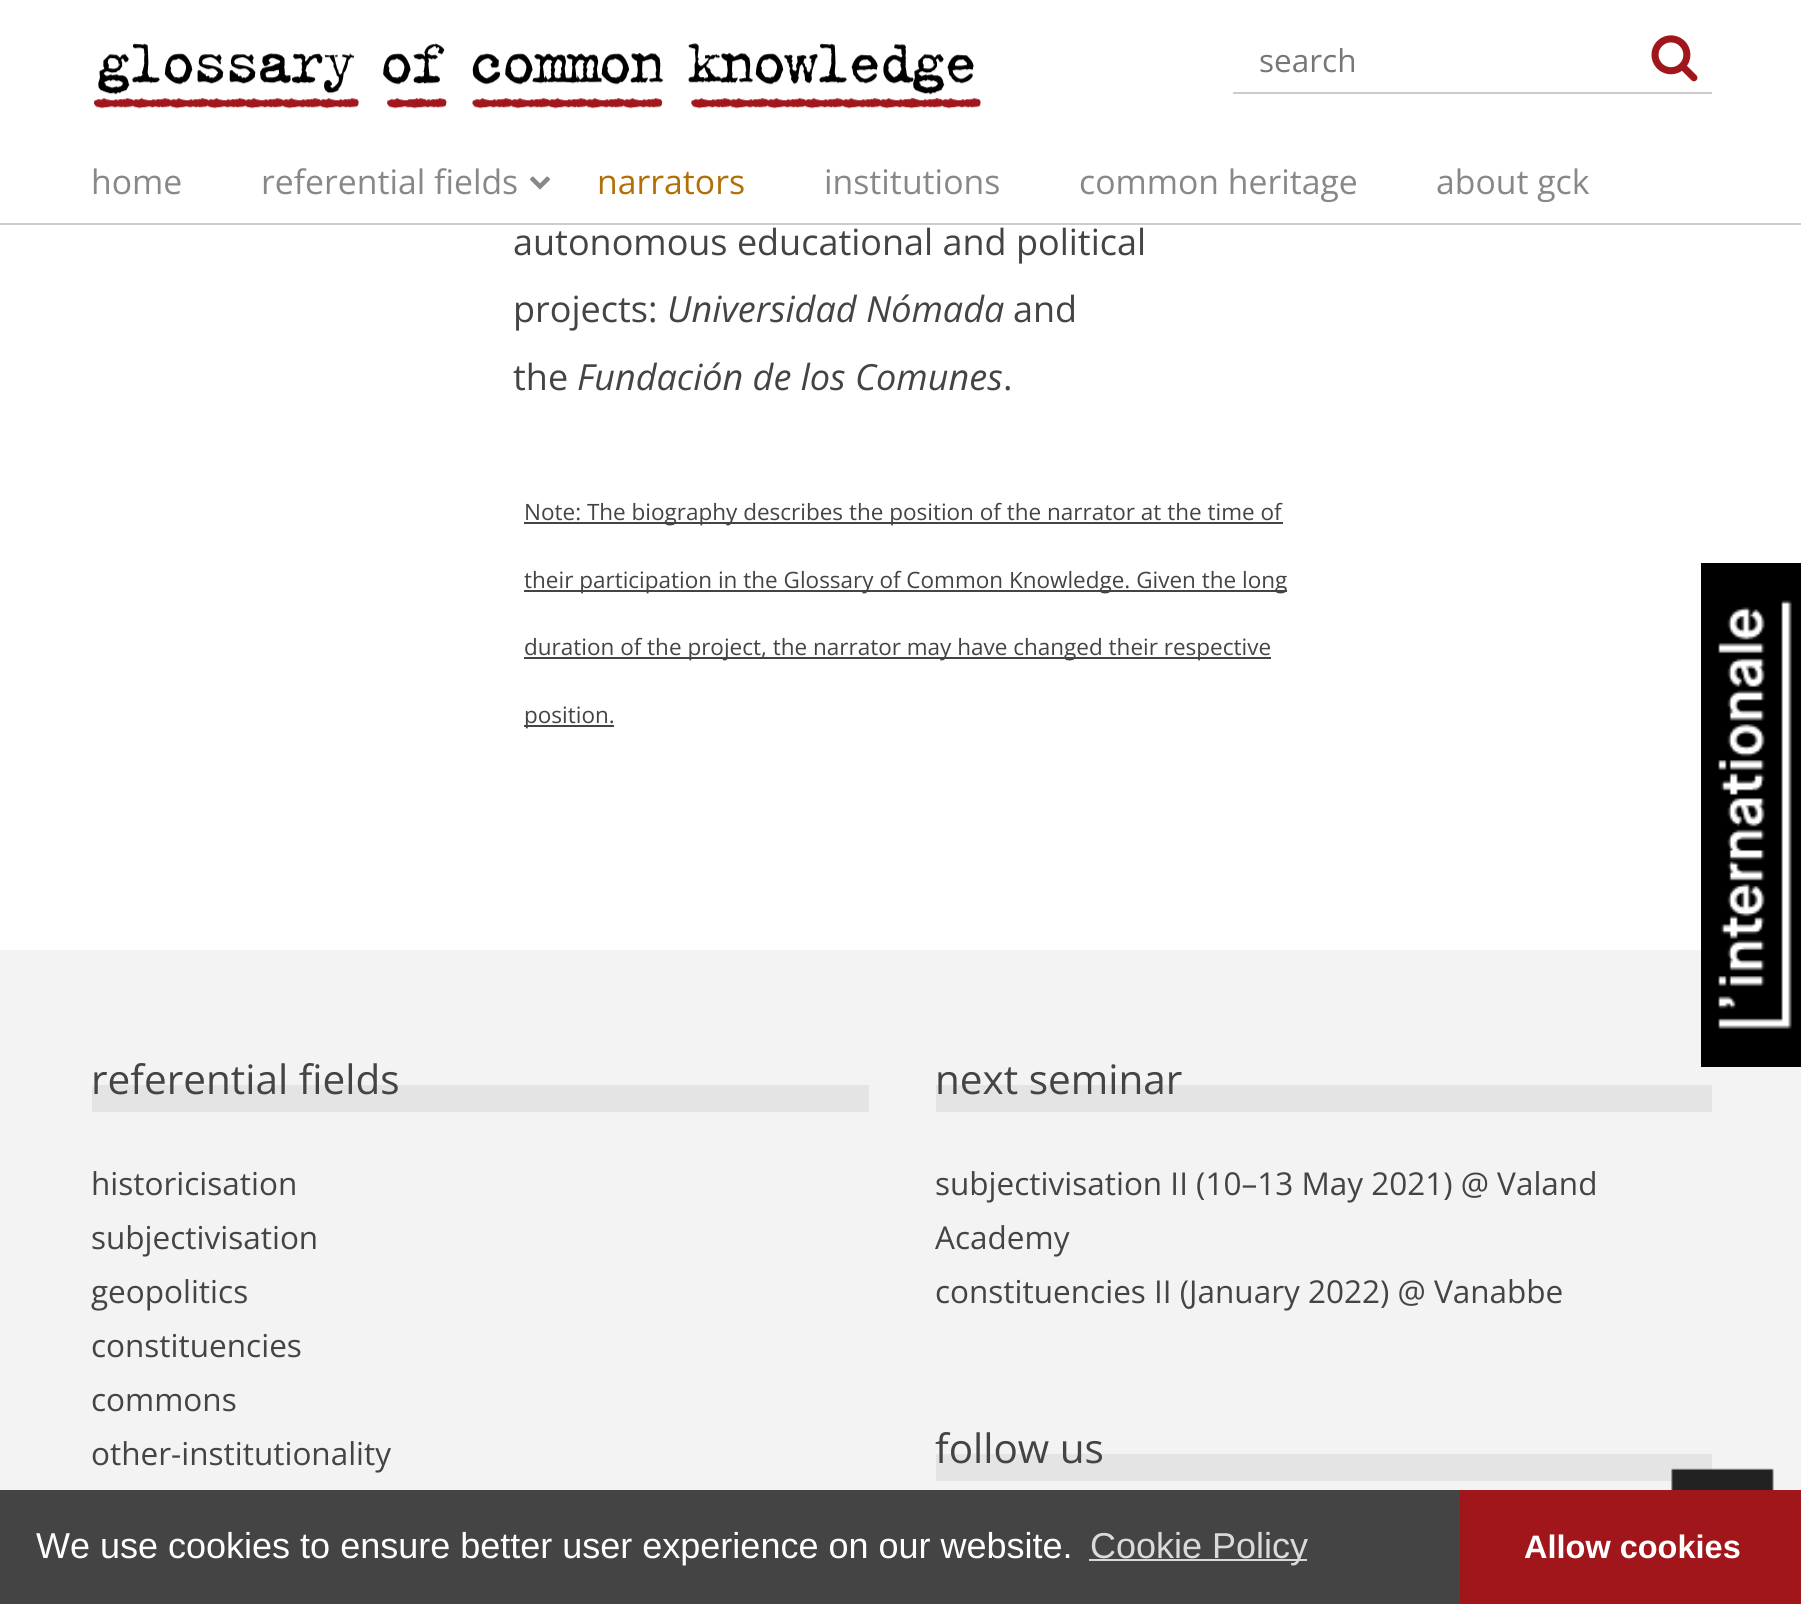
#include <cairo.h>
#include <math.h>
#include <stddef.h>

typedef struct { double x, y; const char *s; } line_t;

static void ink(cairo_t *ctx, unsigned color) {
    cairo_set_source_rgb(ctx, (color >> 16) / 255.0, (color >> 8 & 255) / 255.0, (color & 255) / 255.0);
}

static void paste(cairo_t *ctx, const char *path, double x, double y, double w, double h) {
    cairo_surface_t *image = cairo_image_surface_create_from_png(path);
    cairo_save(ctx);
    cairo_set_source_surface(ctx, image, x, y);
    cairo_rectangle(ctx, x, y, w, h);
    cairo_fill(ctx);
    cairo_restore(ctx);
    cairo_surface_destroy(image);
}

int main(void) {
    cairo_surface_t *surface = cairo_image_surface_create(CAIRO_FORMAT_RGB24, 1801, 1604);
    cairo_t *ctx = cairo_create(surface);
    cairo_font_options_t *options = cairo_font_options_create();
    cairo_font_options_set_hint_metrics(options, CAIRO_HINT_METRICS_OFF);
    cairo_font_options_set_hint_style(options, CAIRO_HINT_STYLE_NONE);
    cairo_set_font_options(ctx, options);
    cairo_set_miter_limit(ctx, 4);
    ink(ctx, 0xFFFFFF);
    cairo_paint(ctx);
    ink(ctx, 0xCCCCCC);
    cairo_rectangle(ctx, 0, 223, 1801, 2);
    cairo_fill(ctx);
    paste(ctx, "media/1.png", 94, 43, 887, 66);
    cairo_rectangle(ctx, 1233, 92, 479, 2);
    cairo_fill(ctx);
    cairo_select_font_face(ctx, "Open Sans", CAIRO_FONT_SLANT_NORMAL, CAIRO_FONT_WEIGHT_NORMAL);
    cairo_set_font_size(ctx, 31.5);
    ink(ctx, 0x777777);
    cairo_move_to(ctx, 1259, 72);
    cairo_show_text(ctx, "search");
    paste(ctx, "media/2.png", 1651, 35, 47, 47);
    cairo_set_font_size(ctx, 33.75);
    ink(ctx, 0x888888);
    cairo_move_to(ctx, 91, 194);
    cairo_show_text(ctx, "home");
    cairo_move_to(ctx, 261, 194);
    cairo_show_text(ctx, "referential fields");
    paste(ctx, "media/3.png", 529, 176, 22, 14);
    ink(ctx, 0xB26F06);
    cairo_move_to(ctx, 597, 194);
    cairo_show_text(ctx, "narrators");
    ink(ctx, 0x888888);
    {
        static const line_t items[] = {
            {824, 194, "institutions"},
            {1079, 194, "common heritage"},
            {1436, 194, "about gck"},
        };
        for (size_t i = 0; i < sizeof items / sizeof *items; i++) {
            cairo_move_to(ctx, items[i].x, items[i].y);
            cairo_show_text(ctx, items[i].s);
        }
    }
    cairo_set_font_size(ctx, 36);
    ink(ctx, 0x444444);
    cairo_move_to(ctx, 513, 255);
    cairo_show_text(ctx, "autonomous educational and political");
    cairo_move_to(ctx, 513, 322);
    cairo_show_text(ctx, "projects:");
    cairo_select_font_face(ctx, "Open Sans", CAIRO_FONT_SLANT_ITALIC, CAIRO_FONT_WEIGHT_NORMAL);
    cairo_move_to(ctx, 667, 322);
    cairo_show_text(ctx, "Universidad Nómada");
    cairo_select_font_face(ctx, "Open Sans", CAIRO_FONT_SLANT_NORMAL, CAIRO_FONT_WEIGHT_NORMAL);
    cairo_move_to(ctx, 1013, 322);
    cairo_show_text(ctx, "and");
    cairo_move_to(ctx, 513, 390);
    cairo_show_text(ctx, "the");
    cairo_select_font_face(ctx, "Open Sans", CAIRO_FONT_SLANT_ITALIC, CAIRO_FONT_WEIGHT_NORMAL);
    cairo_move_to(ctx, 577, 390);
    cairo_show_text(ctx, "Fundación de los Comunes");
    cairo_select_font_face(ctx, "Open Sans", CAIRO_FONT_SLANT_NORMAL, CAIRO_FONT_WEIGHT_NORMAL);
    cairo_move_to(ctx, 1003, 390);
    cairo_show_text(ctx, ".");
    cairo_rectangle(ctx, 524, 522, 759, 2);
    cairo_fill(ctx);
    cairo_set_font_size(ctx, 22.5);
    cairo_move_to(ctx, 524, 520);
    cairo_show_text(ctx, "Note: The biography describes the position of the narrator at the time of");
    cairo_rectangle(ctx, 524, 590, 763, 2);
    cairo_fill(ctx);
    cairo_move_to(ctx, 524, 588);
    cairo_show_text(ctx, "their participation in the Glossary of Common Knowledge. Given the long");
    cairo_rectangle(ctx, 524, 657, 747, 2);
    cairo_fill(ctx);
    cairo_move_to(ctx, 524, 655);
    cairo_show_text(ctx, "duration of the project, the narrator may have changed their respective");
    cairo_rectangle(ctx, 524, 725, 90, 2);
    cairo_fill(ctx);
    cairo_move_to(ctx, 524, 723);
    cairo_show_text(ctx, "position.");
    ink(ctx, 0xF3F3F3);
    cairo_rectangle(ctx, 0, 950, 1801, 540);
    cairo_fill(ctx);
    ink(ctx, 0x000000);
    cairo_rectangle(ctx, 1701, 563, 100, 504);
    cairo_fill(ctx);
    paste(ctx, "media/4.png", 1718, 600, 74, 429);
    ink(ctx, 0xE4E4E4);
    cairo_rectangle(ctx, 92, 1085, 777, 27);
    cairo_fill(ctx);
    cairo_set_font_size(ctx, 40.5);
    ink(ctx, 0x444444);
    cairo_move_to(ctx, 91, 1094);
    cairo_show_text(ctx, "referential fields");
    cairo_set_font_size(ctx, 31.5);
    {
        static const line_t items[] = {
            {91, 1195, "historicisation"},
            {91, 1249, "subjectivisation"},
            {91, 1303, "geopolitics"},
            {91, 1357, "constituencies"},
            {91, 1411, "commons"},
            {91, 1465, "other-institutionality"},
        };
        for (size_t i = 0; i < sizeof items / sizeof *items; i++) {
            cairo_move_to(ctx, items[i].x, items[i].y);
            cairo_show_text(ctx, items[i].s);
        }
    }
    ink(ctx, 0xE4E4E4);
    cairo_rectangle(ctx, 936, 1085, 776, 27);
    cairo_fill(ctx);
    cairo_set_font_size(ctx, 40.5);
    ink(ctx, 0x444444);
    cairo_move_to(ctx, 935, 1094);
    cairo_show_text(ctx, "next seminar");
    cairo_set_font_size(ctx, 31.5);
    {
        static const line_t items[] = {
            {935, 1195, "subjectivisation II (10–13 May 2021) @ Valand"},
            {935, 1249, "Academy"},
            {935, 1303, "constituencies II (January 2022) @ Vanabbe"},
        };
        for (size_t i = 0; i < sizeof items / sizeof *items; i++) {
            cairo_move_to(ctx, items[i].x, items[i].y);
            cairo_show_text(ctx, items[i].s);
        }
    }
    ink(ctx, 0xE4E4E4);
    cairo_rectangle(ctx, 936, 1454, 776, 27);
    cairo_fill(ctx);
    cairo_set_font_size(ctx, 40.5);
    ink(ctx, 0x444444);
    cairo_move_to(ctx, 935, 1463);
    cairo_show_text(ctx, "follow us");
    paste(ctx, "media/5.png", 1671, 1468, 103, 22);
    cairo_rectangle(ctx, 0, 1490, 1460, 114);
    cairo_fill(ctx);
    cairo_select_font_face(ctx, "Liberation Sans", CAIRO_FONT_SLANT_NORMAL, CAIRO_FONT_WEIGHT_NORMAL);
    cairo_set_font_size(ctx, 36);
    ink(ctx, 0xFFFFFF);
    cairo_move_to(ctx, 36, 1558);
    cairo_show_text(ctx, "We use cookies to ensure better user experience on our website.");
    ink(ctx, 0xDADADA);
    cairo_rectangle(ctx, 1089, 1559, 218, 2);
    cairo_fill(ctx);
    cairo_move_to(ctx, 1090, 1558);
    cairo_show_text(ctx, "Cookie Policy");
    ink(ctx, 0xA0161B);
    cairo_rectangle(ctx, 1460, 1490, 341, 114);
    cairo_fill(ctx);
    cairo_select_font_face(ctx, "Liberation Sans", CAIRO_FONT_SLANT_NORMAL, CAIRO_FONT_WEIGHT_BOLD);
    cairo_set_font_size(ctx, 32.5);
    ink(ctx, 0xFFFFFF);
    cairo_move_to(ctx, 1524, 1558);
    cairo_show_text(ctx, "Allow cookies");
    cairo_surface_write_to_png(surface, "image.png");
    cairo_font_options_destroy(options);
    cairo_destroy(ctx);
    cairo_surface_destroy(surface);
    return 0;
}
